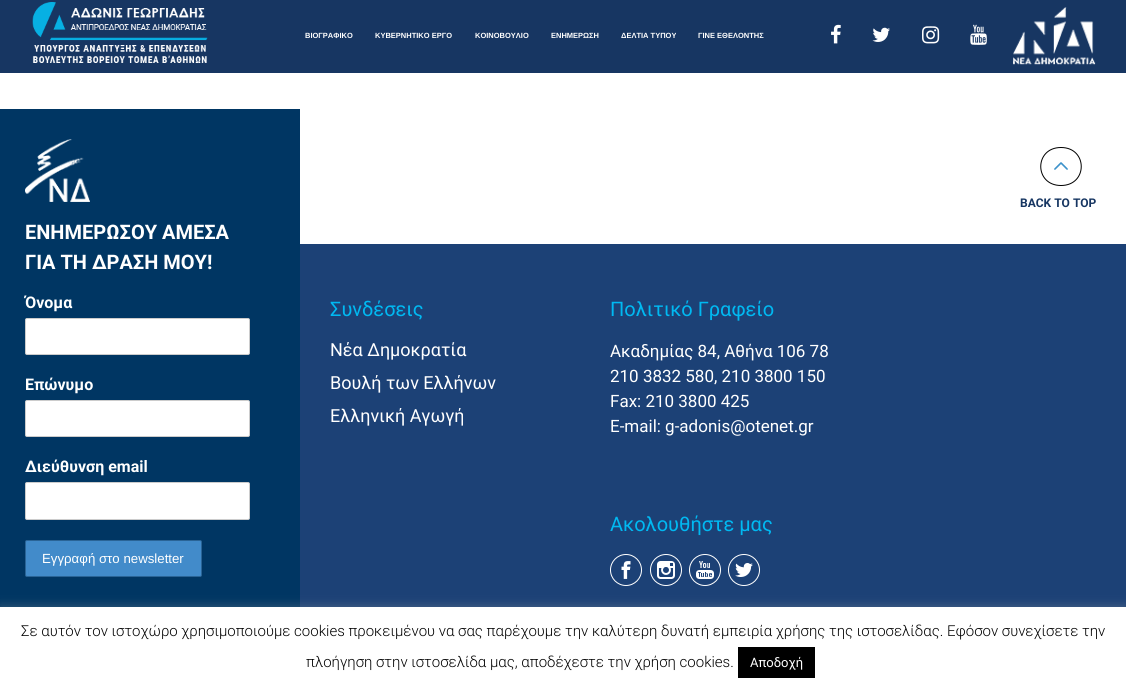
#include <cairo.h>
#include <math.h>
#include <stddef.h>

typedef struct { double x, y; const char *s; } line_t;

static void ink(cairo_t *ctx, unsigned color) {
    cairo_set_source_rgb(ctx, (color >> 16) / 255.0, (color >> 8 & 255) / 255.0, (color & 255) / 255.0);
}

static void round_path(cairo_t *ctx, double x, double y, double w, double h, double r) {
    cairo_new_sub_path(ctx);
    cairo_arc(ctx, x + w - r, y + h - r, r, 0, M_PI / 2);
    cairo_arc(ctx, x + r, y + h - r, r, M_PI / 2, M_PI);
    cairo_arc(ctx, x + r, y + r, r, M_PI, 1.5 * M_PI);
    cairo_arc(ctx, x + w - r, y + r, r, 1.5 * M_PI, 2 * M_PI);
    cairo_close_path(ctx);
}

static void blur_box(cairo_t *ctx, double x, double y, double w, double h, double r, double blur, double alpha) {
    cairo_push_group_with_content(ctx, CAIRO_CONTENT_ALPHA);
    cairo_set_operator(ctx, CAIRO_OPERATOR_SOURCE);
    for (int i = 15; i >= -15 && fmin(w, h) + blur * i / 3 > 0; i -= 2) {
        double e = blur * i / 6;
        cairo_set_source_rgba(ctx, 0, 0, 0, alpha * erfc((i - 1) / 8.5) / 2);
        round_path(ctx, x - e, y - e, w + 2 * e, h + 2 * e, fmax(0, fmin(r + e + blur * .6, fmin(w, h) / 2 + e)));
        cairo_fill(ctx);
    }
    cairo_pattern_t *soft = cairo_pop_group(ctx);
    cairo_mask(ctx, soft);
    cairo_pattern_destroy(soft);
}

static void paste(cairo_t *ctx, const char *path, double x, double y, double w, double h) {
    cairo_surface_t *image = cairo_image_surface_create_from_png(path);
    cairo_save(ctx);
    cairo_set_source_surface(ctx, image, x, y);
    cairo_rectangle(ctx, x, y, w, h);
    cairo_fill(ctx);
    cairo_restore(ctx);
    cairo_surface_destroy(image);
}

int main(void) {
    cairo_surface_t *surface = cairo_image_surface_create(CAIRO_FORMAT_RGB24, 1126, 695);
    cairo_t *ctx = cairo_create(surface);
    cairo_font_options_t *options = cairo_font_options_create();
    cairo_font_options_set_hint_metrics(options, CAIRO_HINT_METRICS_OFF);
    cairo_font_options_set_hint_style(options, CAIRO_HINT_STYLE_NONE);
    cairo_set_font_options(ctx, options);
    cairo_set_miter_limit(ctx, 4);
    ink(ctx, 0xFFFFFF);
    cairo_paint(ctx);
    ink(ctx, 0x173662);
    cairo_rectangle(ctx, 0, 0, 1126, 73);
    cairo_fill(ctx);
    paste(ctx, "media/1.png", 32, 2, 176, 61);
    cairo_select_font_face(ctx, "Liberation Sans", CAIRO_FONT_SLANT_NORMAL, CAIRO_FONT_WEIGHT_BOLD);
    cairo_set_font_size(ctx, 7.5);
    ink(ctx, 0xFFFFFF);
    {
        static const line_t items[] = {
            {305, 38, "ΒΙΟΓΡΑΦΙΚΟ"},
            {375, 38, "ΚΥΒΕΡΝΗΤΙΚΟ ΕΡΓΟ"},
            {475, 38, "ΚΟΙΝΟΒΟΥΛΙΟ"},
            {551, 38, "ΕΝΗΜΕΡΩΣΗ"},
            {621, 38, "ΔΕΛΤΙΑ ΤΥΠΟΥ"},
            {698, 38, "ΓΙΝΕ ΕΘΕΛΟΝΤΗΣ"},
        };
        for (size_t i = 0; i < sizeof items / sizeof *items; i++) {
            cairo_move_to(ctx, items[i].x, items[i].y);
            cairo_show_text(ctx, items[i].s);
        }
    }
    paste(ctx, "media/2.png", 831, 24, 10, 20);
    paste(ctx, "media/3.png", 872, 27, 18, 15);
    paste(ctx, "media/4.png", 922, 26, 18, 18);
    paste(ctx, "media/5.png", 970, 24, 17, 21);
    paste(ctx, "media/6.png", 1013, 7, 83, 58);
    ink(ctx, 0x003663);
    cairo_rectangle(ctx, 0, 109, 300, 498);
    cairo_fill(ctx);
    paste(ctx, "media/7.png", 25, 139, 65, 63);
    cairo_select_font_face(ctx, "Roboto", CAIRO_FONT_SLANT_NORMAL, CAIRO_FONT_WEIGHT_BOLD);
    cairo_set_font_size(ctx, 20);
    ink(ctx, 0xFFFFFF);
    cairo_move_to(ctx, 25, 239);
    cairo_show_text(ctx, "ΕΝΗΜΕΡΩΣΟΥ ΑΜΕΣΑ");
    cairo_move_to(ctx, 25, 269);
    cairo_show_text(ctx, "ΓΙΑ ΤΗ ΔΡΑΣΗ ΜΟΥ!");
    cairo_set_font_size(ctx, 16);
    cairo_move_to(ctx, 25, 308);
    cairo_show_text(ctx, "Όνομα");
    round_path(ctx, 25.5, 318.5, 224, 36, 1.5);
    cairo_fill_preserve(ctx);
    ink(ctx, 0xCCCCCC);
    cairo_set_line_width(ctx, 1);
    cairo_stroke(ctx);
    ink(ctx, 0xFFFFFF);
    cairo_move_to(ctx, 25, 390);
    cairo_show_text(ctx, "Επώνυμο");
    round_path(ctx, 25.5, 400.5, 224, 36, 1.5);
    cairo_fill_preserve(ctx);
    ink(ctx, 0xCCCCCC);
    cairo_stroke(ctx);
    ink(ctx, 0xFFFFFF);
    cairo_move_to(ctx, 25, 472);
    cairo_show_text(ctx, "Διεύθυνση email");
    round_path(ctx, 25.5, 482.5, 224, 37, 1.5);
    cairo_fill_preserve(ctx);
    ink(ctx, 0xCCCCCC);
    cairo_stroke(ctx);
    ink(ctx, 0x428BCA);
    round_path(ctx, 25.5, 540.5, 176, 36, 1.5);
    cairo_fill_preserve(ctx);
    ink(ctx, 0x2A6496);
    cairo_stroke(ctx);
    cairo_select_font_face(ctx, "Liberation Sans", CAIRO_FONT_SLANT_NORMAL, CAIRO_FONT_WEIGHT_NORMAL);
    cairo_set_font_size(ctx, 13.25);
    ink(ctx, 0xFFFFFF);
    cairo_move_to(ctx, 42, 563);
    cairo_show_text(ctx, "Εγγραφή στο newsletter");
    paste(ctx, "media/8.png", 1054, 162, 14, 8);
    cairo_new_path(ctx);
    cairo_move_to(ctx, 1061, 147.5);
    cairo_curve_to(ctx, 1088, 147.5, 1088, 185.5, 1061, 185.5);
    cairo_curve_to(ctx, 1034, 185.5, 1034, 147.5, 1061, 147.5);
    cairo_close_path(ctx);
    ink(ctx, 0x000000);
    cairo_stroke(ctx);
    cairo_select_font_face(ctx, "Roboto", CAIRO_FONT_SLANT_NORMAL, CAIRO_FONT_WEIGHT_BOLD);
    cairo_set_font_size(ctx, 12);
    ink(ctx, 0x173662);
    cairo_move_to(ctx, 1020, 207);
    cairo_show_text(ctx, "BACK TO TOP");
    ink(ctx, 0x1C4176);
    cairo_rectangle(ctx, 300, 244, 826, 363);
    cairo_fill(ctx);
    cairo_select_font_face(ctx, "Roboto", CAIRO_FONT_SLANT_NORMAL, CAIRO_FONT_WEIGHT_NORMAL);
    cairo_set_font_size(ctx, 20);
    ink(ctx, 0x00B9F2);
    cairo_move_to(ctx, 330, 316);
    cairo_show_text(ctx, "Συνδέσεις");
    cairo_set_font_size(ctx, 18);
    ink(ctx, 0xFFFFFF);
    {
        static const line_t items[] = {
            {330, 356, "Νέα Δημοκρατία"},
            {330, 389, "Βουλή των Ελλήνων"},
            {330, 422, "Ελληνική Αγωγή"},
        };
        for (size_t i = 0; i < sizeof items / sizeof *items; i++) {
            cairo_move_to(ctx, items[i].x, items[i].y);
            cairo_show_text(ctx, items[i].s);
        }
    }
    cairo_set_font_size(ctx, 20);
    ink(ctx, 0x00B9F2);
    cairo_move_to(ctx, 610, 316);
    cairo_show_text(ctx, "Πολιτικό Γραφείο");
    cairo_set_font_size(ctx, 17);
    ink(ctx, 0xFFFFFF);
    {
        static const line_t items[] = {
            {610, 357, "Ακαδημίας 84, Αθήνα 106 78"},
            {610, 382, "210 3832 580, 210 3800 150"},
            {610, 407, "Fax: 210 3800 425"},
            {610, 432, "E-mail: g-adonis@otenet.gr"},
        };
        for (size_t i = 0; i < sizeof items / sizeof *items; i++) {
            cairo_move_to(ctx, items[i].x, items[i].y);
            cairo_show_text(ctx, items[i].s);
        }
    }
    cairo_set_font_size(ctx, 20);
    ink(ctx, 0x00B9F2);
    cairo_move_to(ctx, 610, 531);
    cairo_show_text(ctx, "Aκολουθήστε μας");
    cairo_new_path(ctx);
    cairo_arc(ctx, 626, 570, 15.5, 0, 2 * M_PI);
    ink(ctx, 0xFFFFFF);
    cairo_stroke(ctx);
    paste(ctx, "media/9.png", 621, 561, 10, 18);
    cairo_arc(ctx, 666, 570, 15.5, 0, 2 * M_PI);
    cairo_stroke(ctx);
    paste(ctx, "media/10.png", 657, 561, 18, 18);
    cairo_arc(ctx, 705, 570, 15.5, 0, 2 * M_PI);
    cairo_stroke(ctx);
    paste(ctx, "media/11.png", 696, 561, 18, 18);
    cairo_arc(ctx, 744, 570, 15.5, 0, 2 * M_PI);
    cairo_stroke(ctx);
    paste(ctx, "media/12.png", 735, 563, 18, 14);
    ink(ctx, 0xACABAB);
    blur_box(ctx, 0, 606, 1126, 88, 0, 5, 0.3);
    ink(ctx, 0xFFFFFF);
    cairo_rectangle(ctx, 0, 607, 1126, 88);
    cairo_fill(ctx);
    cairo_select_font_face(ctx, "Roboto Light", CAIRO_FONT_SLANT_NORMAL, CAIRO_FONT_WEIGHT_NORMAL);
    cairo_set_font_size(ctx, 15);
    ink(ctx, 0x000000);
    cairo_move_to(ctx, 21, 636);
    cairo_show_text(ctx, "Σε αυτόν τον ιστοχώρο χρησιμοποιούμε cookies προκειμένου να σας παρέχουμε την καλύτερη δυνατή εμπειρία χρήσης της ιστοσελίδας. Εφόσον συνεχίσετε την");
    cairo_move_to(ctx, 306, 667);
    cairo_show_text(ctx, "πλοήγηση στην ιστοσελίδα μας, αποδέχεστε την χρήση cookies.");
    cairo_rectangle(ctx, 738, 647, 77, 31);
    cairo_fill(ctx);
    cairo_select_font_face(ctx, "Roboto", CAIRO_FONT_SLANT_NORMAL, CAIRO_FONT_WEIGHT_NORMAL);
    cairo_set_font_size(ctx, 13);
    ink(ctx, 0xFFFFFF);
    cairo_move_to(ctx, 750, 667);
    cairo_show_text(ctx, "Αποδοχή");
    cairo_surface_write_to_png(surface, "image.png");
    cairo_font_options_destroy(options);
    cairo_destroy(ctx);
    cairo_surface_destroy(surface);
    return 0;
}
